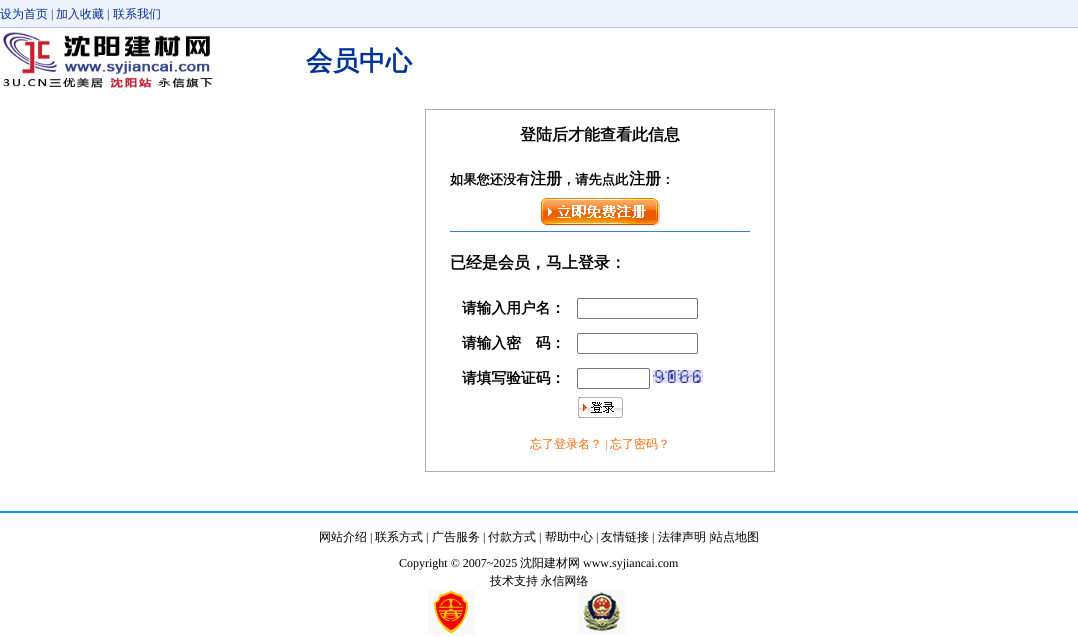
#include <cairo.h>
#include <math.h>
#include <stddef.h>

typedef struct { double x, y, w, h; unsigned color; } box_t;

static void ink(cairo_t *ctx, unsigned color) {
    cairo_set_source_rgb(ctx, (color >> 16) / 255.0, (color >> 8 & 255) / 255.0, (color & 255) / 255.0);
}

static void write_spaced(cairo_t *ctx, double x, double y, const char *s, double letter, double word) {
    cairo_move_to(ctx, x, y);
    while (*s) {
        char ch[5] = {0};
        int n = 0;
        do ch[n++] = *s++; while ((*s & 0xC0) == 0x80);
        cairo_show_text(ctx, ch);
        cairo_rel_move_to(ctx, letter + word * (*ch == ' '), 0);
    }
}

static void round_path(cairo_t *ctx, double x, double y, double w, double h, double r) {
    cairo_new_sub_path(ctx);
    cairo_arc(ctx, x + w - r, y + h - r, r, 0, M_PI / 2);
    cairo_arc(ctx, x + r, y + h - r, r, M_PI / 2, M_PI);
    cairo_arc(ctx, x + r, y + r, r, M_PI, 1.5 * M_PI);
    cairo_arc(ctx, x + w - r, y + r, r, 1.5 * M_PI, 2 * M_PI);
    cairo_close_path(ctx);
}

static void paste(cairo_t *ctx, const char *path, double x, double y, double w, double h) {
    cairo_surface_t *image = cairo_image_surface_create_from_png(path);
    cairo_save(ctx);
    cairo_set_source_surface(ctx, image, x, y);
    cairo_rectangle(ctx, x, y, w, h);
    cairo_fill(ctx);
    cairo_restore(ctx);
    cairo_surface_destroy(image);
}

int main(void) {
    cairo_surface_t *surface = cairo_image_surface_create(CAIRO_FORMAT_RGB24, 1078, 637);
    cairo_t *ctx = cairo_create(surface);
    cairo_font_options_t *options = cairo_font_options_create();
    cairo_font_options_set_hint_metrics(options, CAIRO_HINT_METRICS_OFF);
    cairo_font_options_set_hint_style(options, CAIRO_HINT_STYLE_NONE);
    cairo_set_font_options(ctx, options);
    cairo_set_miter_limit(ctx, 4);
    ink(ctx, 0xFFFFFF);
    cairo_paint(ctx);
    ink(ctx, 0xEEF2FA);
    cairo_rectangle(ctx, 0, 0, 1078, 27);
    cairo_fill(ctx);
    ink(ctx, 0xB4C4E6);
    cairo_rectangle(ctx, 0, 27, 1078, 1);
    cairo_fill(ctx);
    cairo_select_font_face(ctx, "WenQuanYi Zen Hei Medium", CAIRO_FONT_SLANT_NORMAL, CAIRO_FONT_WEIGHT_NORMAL);
    cairo_set_font_size(ctx, 12);
    ink(ctx, 0x003399);
    cairo_move_to(ctx, 0, 18);
    cairo_show_text(ctx, "设为首页");
    cairo_select_font_face(ctx, "Liberation Serif", CAIRO_FONT_SLANT_NORMAL, CAIRO_FONT_WEIGHT_NORMAL);
    cairo_move_to(ctx, 51, 18);
    cairo_show_text(ctx, "|");
    cairo_select_font_face(ctx, "WenQuanYi Zen Hei Medium", CAIRO_FONT_SLANT_NORMAL, CAIRO_FONT_WEIGHT_NORMAL);
    cairo_move_to(ctx, 56, 18);
    cairo_show_text(ctx, "加入收藏");
    cairo_select_font_face(ctx, "Liberation Serif", CAIRO_FONT_SLANT_NORMAL, CAIRO_FONT_WEIGHT_NORMAL);
    cairo_move_to(ctx, 107, 18);
    cairo_show_text(ctx, "|");
    cairo_select_font_face(ctx, "WenQuanYi Zen Hei Medium", CAIRO_FONT_SLANT_NORMAL, CAIRO_FONT_WEIGHT_NORMAL);
    cairo_move_to(ctx, 113, 18);
    cairo_show_text(ctx, "联系我们");
    paste(ctx, "media/1.png", 3, 32, 210, 56);
    cairo_select_font_face(ctx, "WenQuanYi Zen Hei", CAIRO_FONT_SLANT_NORMAL, CAIRO_FONT_WEIGHT_BOLD);
    cairo_set_font_size(ctx, 26.5);
    cairo_move_to(ctx, 306, 70);
    cairo_show_text(ctx, "会员中心");
    {
        static const box_t items[] = {
            {425, 109, 350, 1, 0xADADAD},
            {774, 109, 1, 363, 0xADADAD},
            {425, 471, 350, 1, 0xADADAD},
            {425, 109, 1, 363, 0xADADAD},
        };
        for (size_t i = 0; i < sizeof items / sizeof *items; i++) {
            ink(ctx, items[i].color);
            cairo_rectangle(ctx, items[i].x, items[i].y, items[i].w, items[i].h);
            cairo_fill(ctx);
        }
    }
    cairo_set_font_size(ctx, 16);
    ink(ctx, 0x000000);
    cairo_move_to(ctx, 520, 140);
    cairo_show_text(ctx, "登陆后才能查看此信息");
    cairo_set_font_size(ctx, 13.25);
    cairo_move_to(ctx, 450, 184);
    cairo_show_text(ctx, "如果您还没有");
    cairo_set_font_size(ctx, 16);
    cairo_move_to(ctx, 530, 184);
    cairo_show_text(ctx, "注册");
    cairo_set_font_size(ctx, 13.25);
    cairo_move_to(ctx, 562, 184);
    cairo_show_text(ctx, "，请先点此");
    cairo_set_font_size(ctx, 16);
    cairo_move_to(ctx, 629, 184);
    cairo_show_text(ctx, "注册");
    cairo_set_font_size(ctx, 13.25);
    cairo_move_to(ctx, 661, 184);
    cairo_show_text(ctx, "：");
    paste(ctx, "media/2.png", 541, 198, 119, 27);
    ink(ctx, 0x3086CE);
    cairo_rectangle(ctx, 450, 231, 300, 1);
    cairo_fill(ctx);
    cairo_set_font_size(ctx, 16);
    ink(ctx, 0x000000);
    cairo_move_to(ctx, 450, 268);
    cairo_show_text(ctx, "已经是会员，马上登录：");
    cairo_set_font_size(ctx, 14.75);
    cairo_move_to(ctx, 462, 313);
    cairo_show_text(ctx, "请输入用户名：");
    round_path(ctx, 577.5, 298.5, 120, 20, 1.5);
    ink(ctx, 0x767676);
    cairo_set_line_width(ctx, 1);
    cairo_stroke(ctx);
    ink(ctx, 0x000000);
    cairo_move_to(ctx, 462, 348);
    cairo_show_text(ctx, "请输入密　码：");
    round_path(ctx, 577.5, 333.5, 120, 20, 1.5);
    ink(ctx, 0x767676);
    cairo_stroke(ctx);
    ink(ctx, 0x000000);
    cairo_move_to(ctx, 462, 383);
    cairo_show_text(ctx, "请填写验证码：");
    round_path(ctx, 577.5, 368.5, 72, 20, 1.5);
    ink(ctx, 0x767676);
    cairo_stroke(ctx);
    paste(ctx, "media/3.png", 653, 370, 50, 13);
    paste(ctx, "media/4.png", 578, 397, 45, 21);
    cairo_select_font_face(ctx, "WenQuanYi Zen Hei Medium", CAIRO_FONT_SLANT_NORMAL, CAIRO_FONT_WEIGHT_NORMAL);
    cairo_set_font_size(ctx, 12);
    ink(ctx, 0xFF6600);
    cairo_move_to(ctx, 530, 448);
    cairo_show_text(ctx, "忘了登录名？");
    cairo_select_font_face(ctx, "Liberation Serif", CAIRO_FONT_SLANT_NORMAL, CAIRO_FONT_WEIGHT_NORMAL);
    cairo_move_to(ctx, 605, 448);
    cairo_show_text(ctx, "|");
    cairo_select_font_face(ctx, "WenQuanYi Zen Hei Medium", CAIRO_FONT_SLANT_NORMAL, CAIRO_FONT_WEIGHT_NORMAL);
    cairo_move_to(ctx, 610, 448);
    cairo_show_text(ctx, "忘了密码？");
    ink(ctx, 0x0099FF);
    cairo_rectangle(ctx, 0, 511, 1078, 2);
    cairo_fill(ctx);
    ink(ctx, 0x000000);
    cairo_move_to(ctx, 319, 541);
    cairo_show_text(ctx, "网站介绍");
    cairo_select_font_face(ctx, "Liberation Serif", CAIRO_FONT_SLANT_NORMAL, CAIRO_FONT_WEIGHT_NORMAL);
    cairo_move_to(ctx, 370, 541);
    cairo_show_text(ctx, "|");
    cairo_select_font_face(ctx, "WenQuanYi Zen Hei Medium", CAIRO_FONT_SLANT_NORMAL, CAIRO_FONT_WEIGHT_NORMAL);
    cairo_move_to(ctx, 375, 541);
    cairo_show_text(ctx, "联系方式");
    cairo_select_font_face(ctx, "Liberation Serif", CAIRO_FONT_SLANT_NORMAL, CAIRO_FONT_WEIGHT_NORMAL);
    cairo_move_to(ctx, 426, 541);
    cairo_show_text(ctx, "|");
    cairo_select_font_face(ctx, "WenQuanYi Zen Hei Medium", CAIRO_FONT_SLANT_NORMAL, CAIRO_FONT_WEIGHT_NORMAL);
    cairo_move_to(ctx, 432, 541);
    cairo_show_text(ctx, "广告服务");
    cairo_select_font_face(ctx, "Liberation Serif", CAIRO_FONT_SLANT_NORMAL, CAIRO_FONT_WEIGHT_NORMAL);
    cairo_move_to(ctx, 483, 541);
    cairo_show_text(ctx, "|");
    cairo_select_font_face(ctx, "WenQuanYi Zen Hei Medium", CAIRO_FONT_SLANT_NORMAL, CAIRO_FONT_WEIGHT_NORMAL);
    cairo_move_to(ctx, 488, 541);
    cairo_show_text(ctx, "付款方式");
    cairo_select_font_face(ctx, "Liberation Serif", CAIRO_FONT_SLANT_NORMAL, CAIRO_FONT_WEIGHT_NORMAL);
    cairo_move_to(ctx, 539, 541);
    cairo_show_text(ctx, "|");
    cairo_select_font_face(ctx, "WenQuanYi Zen Hei Medium", CAIRO_FONT_SLANT_NORMAL, CAIRO_FONT_WEIGHT_NORMAL);
    cairo_move_to(ctx, 545, 541);
    cairo_show_text(ctx, "帮助中心");
    cairo_select_font_face(ctx, "Liberation Serif", CAIRO_FONT_SLANT_NORMAL, CAIRO_FONT_WEIGHT_NORMAL);
    cairo_move_to(ctx, 596, 541);
    cairo_show_text(ctx, "|");
    cairo_select_font_face(ctx, "WenQuanYi Zen Hei Medium", CAIRO_FONT_SLANT_NORMAL, CAIRO_FONT_WEIGHT_NORMAL);
    cairo_move_to(ctx, 601, 541);
    cairo_show_text(ctx, "友情链接");
    cairo_select_font_face(ctx, "Liberation Serif", CAIRO_FONT_SLANT_NORMAL, CAIRO_FONT_WEIGHT_NORMAL);
    cairo_move_to(ctx, 652, 541);
    cairo_show_text(ctx, "|");
    cairo_select_font_face(ctx, "WenQuanYi Zen Hei Medium", CAIRO_FONT_SLANT_NORMAL, CAIRO_FONT_WEIGHT_NORMAL);
    cairo_move_to(ctx, 658, 541);
    cairo_show_text(ctx, "法律声明");
    cairo_select_font_face(ctx, "Liberation Serif", CAIRO_FONT_SLANT_NORMAL, CAIRO_FONT_WEIGHT_NORMAL);
    cairo_move_to(ctx, 709, 541);
    cairo_show_text(ctx, "|");
    cairo_select_font_face(ctx, "WenQuanYi Zen Hei Medium", CAIRO_FONT_SLANT_NORMAL, CAIRO_FONT_WEIGHT_NORMAL);
    cairo_move_to(ctx, 711, 541);
    cairo_show_text(ctx, "站点地图");
    cairo_select_font_face(ctx, "Liberation Serif", CAIRO_FONT_SLANT_NORMAL, CAIRO_FONT_WEIGHT_NORMAL);
    cairo_move_to(ctx, 399, 567);
    cairo_show_text(ctx, "Copyright © 2007~2025");
    cairo_select_font_face(ctx, "WenQuanYi Zen Hei Medium", CAIRO_FONT_SLANT_NORMAL, CAIRO_FONT_WEIGHT_NORMAL);
    cairo_move_to(ctx, 520, 567);
    cairo_show_text(ctx, "沈阳建材网");
    cairo_select_font_face(ctx, "Liberation Serif", CAIRO_FONT_SLANT_NORMAL, CAIRO_FONT_WEIGHT_NORMAL);
    cairo_move_to(ctx, 583, 567);
    cairo_show_text(ctx, "www.syjiancai.com");
    cairo_select_font_face(ctx, "WenQuanYi Zen Hei Medium", CAIRO_FONT_SLANT_NORMAL, CAIRO_FONT_WEIGHT_NORMAL);
    write_spaced(ctx, 490, 585, "技术支持 永信网络", 0, -1);
    paste(ctx, "media/5.png", 428, 590, 47, 44);
    paste(ctx, "media/6.png", 578, 590, 47, 44);
    cairo_surface_write_to_png(surface, "image.png");
    cairo_font_options_destroy(options);
    cairo_destroy(ctx);
    cairo_surface_destroy(surface);
    return 0;
}
